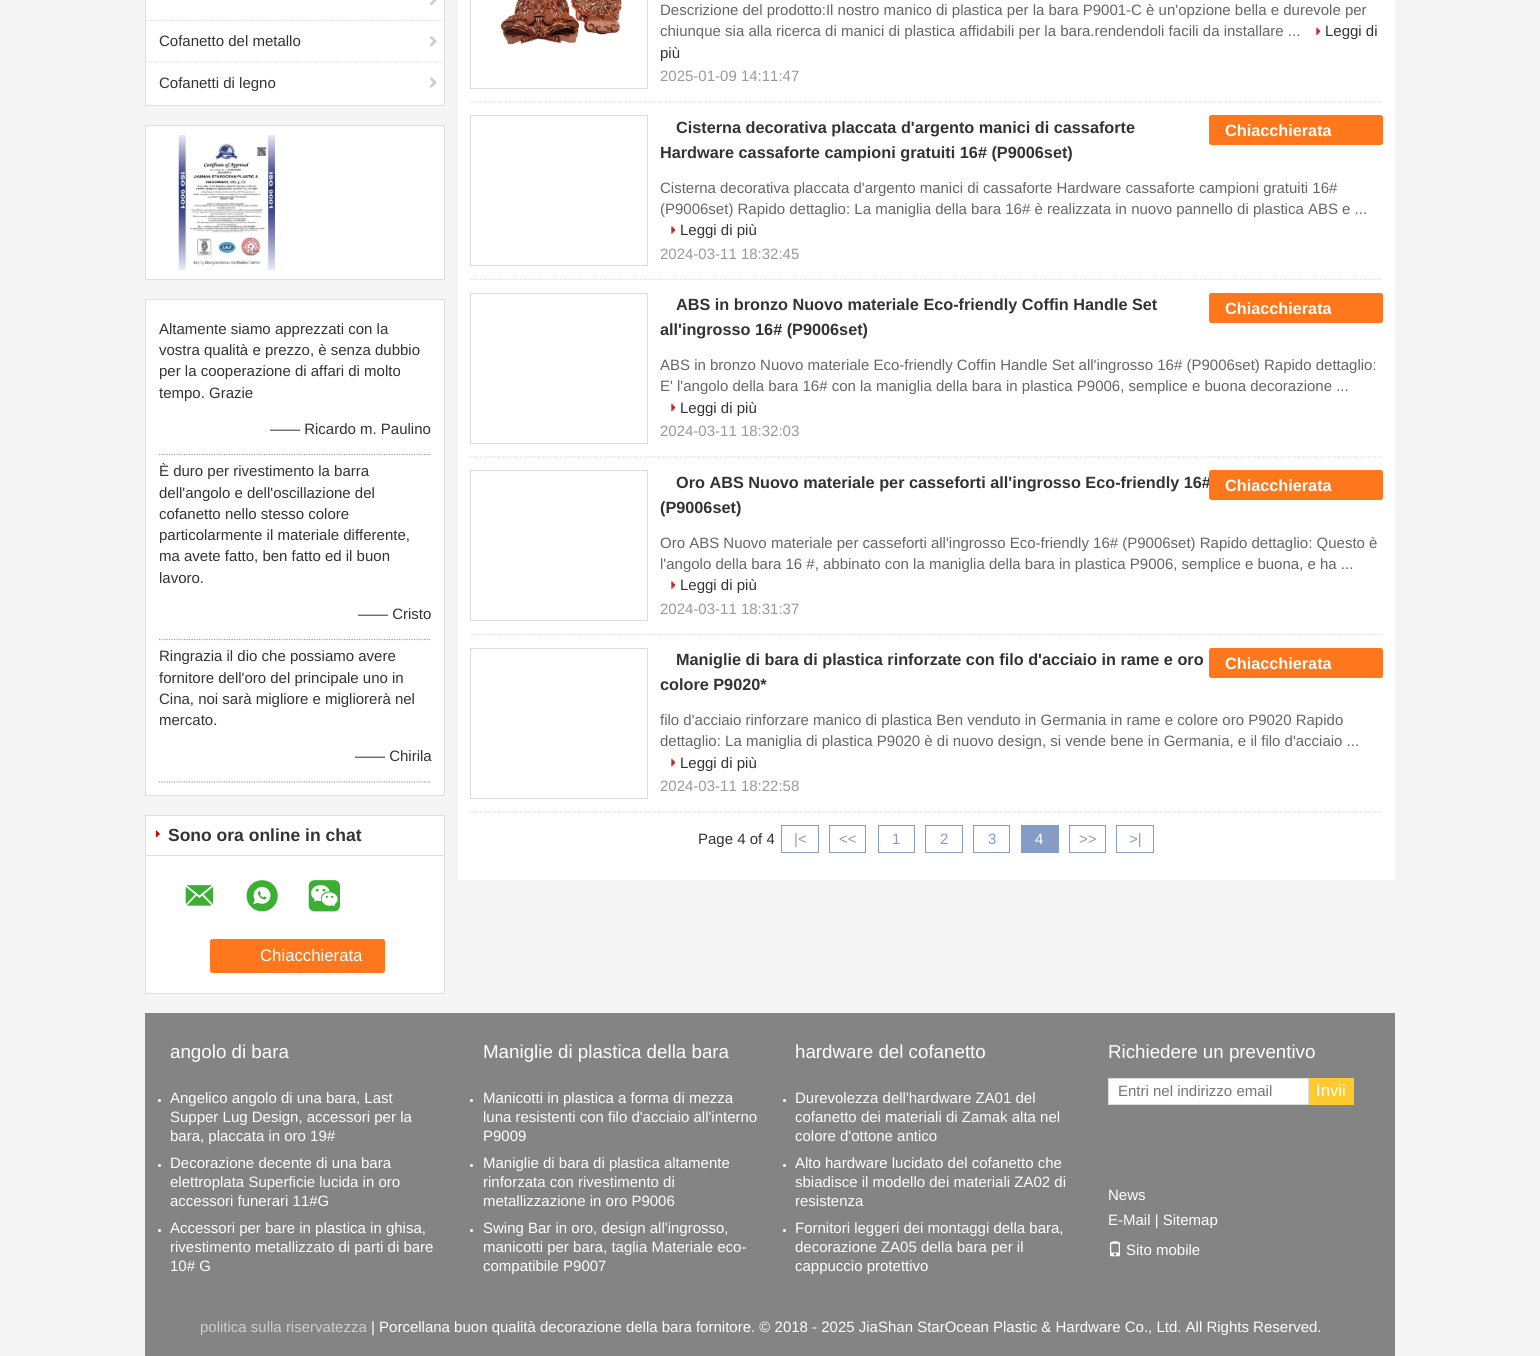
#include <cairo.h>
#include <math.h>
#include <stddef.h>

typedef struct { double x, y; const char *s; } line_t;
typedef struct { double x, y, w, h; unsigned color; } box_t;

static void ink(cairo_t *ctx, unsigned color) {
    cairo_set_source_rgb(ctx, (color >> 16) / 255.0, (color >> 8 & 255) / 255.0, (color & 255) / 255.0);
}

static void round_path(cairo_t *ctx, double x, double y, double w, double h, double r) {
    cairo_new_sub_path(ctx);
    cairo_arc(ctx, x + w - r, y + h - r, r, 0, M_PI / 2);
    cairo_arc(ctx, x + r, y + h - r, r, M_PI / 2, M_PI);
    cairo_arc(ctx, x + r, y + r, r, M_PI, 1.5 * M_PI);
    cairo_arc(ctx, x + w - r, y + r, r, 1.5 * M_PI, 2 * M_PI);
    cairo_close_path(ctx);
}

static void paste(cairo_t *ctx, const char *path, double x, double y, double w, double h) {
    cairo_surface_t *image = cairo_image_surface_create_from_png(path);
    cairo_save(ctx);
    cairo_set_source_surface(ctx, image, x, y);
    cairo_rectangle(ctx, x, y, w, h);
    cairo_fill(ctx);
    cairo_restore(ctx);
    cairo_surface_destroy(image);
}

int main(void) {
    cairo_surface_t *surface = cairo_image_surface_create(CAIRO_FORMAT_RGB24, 1540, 1356);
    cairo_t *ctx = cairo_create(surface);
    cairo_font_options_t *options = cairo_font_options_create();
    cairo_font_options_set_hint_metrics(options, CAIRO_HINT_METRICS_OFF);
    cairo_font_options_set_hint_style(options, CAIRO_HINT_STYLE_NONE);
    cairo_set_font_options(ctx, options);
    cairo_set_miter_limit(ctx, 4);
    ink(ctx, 0xF5F5F5);
    cairo_paint(ctx);
    {
        static const box_t items[] = {
            {146, 0, 298, 105, 0xFFFFFF},
            {444, 0, 1, 106, 0xDEDEDE},
            {145, 105, 300, 1, 0xDEDEDE},
            {145, 0, 1, 106, 0xDEDEDE},
        };
        for (size_t i = 0; i < sizeof items / sizeof *items; i++) {
            ink(ctx, items[i].color);
            cairo_rectangle(ctx, items[i].x, items[i].y, items[i].w, items[i].h);
            cairo_fill(ctx);
        }
    }
    paste(ctx, "media/1.png", 430, 0, 7, 6);
    paste(ctx, "media/2.png", 430, 36, 7, 11);
    cairo_new_path(ctx);
    cairo_move_to(ctx, 146, 20.5);
    cairo_line_to(ctx, 444, 20.5);
    cairo_set_line_width(ctx, 1.2);
    cairo_set_dash(ctx, (double[]){1.25, 1.25}, 2, 0);
    cairo_stroke(ctx);
    cairo_select_font_face(ctx, "Liberation Sans", CAIRO_FONT_SLANT_NORMAL, CAIRO_FONT_WEIGHT_NORMAL);
    cairo_set_font_size(ctx, 15);
    ink(ctx, 0x333333);
    cairo_move_to(ctx, 159, 46);
    cairo_show_text(ctx, "Cofanetto del metallo");
    paste(ctx, "media/3.png", 430, 77, 7, 11);
    cairo_new_path(ctx);
    cairo_move_to(ctx, 146, 62);
    cairo_line_to(ctx, 444, 62);
    ink(ctx, 0xDEDEDE);
    cairo_stroke(ctx);
    ink(ctx, 0x333333);
    cairo_move_to(ctx, 159, 88);
    cairo_show_text(ctx, "Cofanetti di legno");
    ink(ctx, 0xFFFFFF);
    cairo_rectangle(ctx, 145.5, 125.5, 299, 154);
    cairo_fill_preserve(ctx);
    ink(ctx, 0xDEDEDE);
    cairo_set_line_width(ctx, 1);
    cairo_set_dash(ctx, NULL, 0, 0);
    cairo_stroke(ctx);
    paste(ctx, "media/4.png", 178, 135, 97, 135);
    ink(ctx, 0xFFFFFF);
    cairo_rectangle(ctx, 145.5, 299.5, 299, 496);
    cairo_fill_preserve(ctx);
    ink(ctx, 0xDEDEDE);
    cairo_stroke(ctx);
    cairo_new_path(ctx);
    cairo_move_to(ctx, 159, 454.5);
    cairo_line_to(ctx, 431, 454.5);
    ink(ctx, 0xA2A2A2);
    cairo_set_line_width(ctx, 1.2);
    cairo_set_dash(ctx, (double[]){1.25, 1.25}, 2, 0);
    cairo_stroke(ctx);
    ink(ctx, 0x333333);
    {
        static const line_t items[] = {
            {159, 334, "Altamente siamo apprezzati con la"},
            {159, 355, "vostra qualità e prezzo, è senza dubbio"},
            {159, 376, "per la cooperazione di affari di molto"},
            {159, 398, "tempo. Grazie"},
            {270, 434, "—— Ricardo m. Paulino"},
        };
        for (size_t i = 0; i < sizeof items / sizeof *items; i++) {
            cairo_move_to(ctx, items[i].x, items[i].y);
            cairo_show_text(ctx, items[i].s);
        }
    }
    cairo_new_path(ctx);
    cairo_move_to(ctx, 159, 639.5);
    cairo_line_to(ctx, 431, 639.5);
    ink(ctx, 0xA2A2A2);
    cairo_stroke(ctx);
    ink(ctx, 0x333333);
    {
        static const line_t items[] = {
            {159, 476, "È duro per rivestimento la barra"},
            {159, 498, "dell'angolo e dell'oscillazione del"},
            {159, 519, "cofanetto nello stesso colore"},
            {159, 540, "particolarmente il materiale differente,"},
            {159, 561, "ma avete fatto, ben fatto ed il buon"},
            {159, 583, "lavoro."},
            {358, 619, "—— Cristo"},
        };
        for (size_t i = 0; i < sizeof items / sizeof *items; i++) {
            cairo_move_to(ctx, items[i].x, items[i].y);
            cairo_show_text(ctx, items[i].s);
        }
    }
    cairo_new_path(ctx);
    cairo_move_to(ctx, 159, 782);
    cairo_line_to(ctx, 431, 782);
    ink(ctx, 0xA2A2A2);
    cairo_stroke(ctx);
    ink(ctx, 0x333333);
    {
        static const line_t items[] = {
            {159, 661, "Ringrazia il dio che possiamo avere"},
            {159, 683, "fornitore dell'oro del principale uno in"},
            {159, 704, "Cina, noi sarà migliore e migliorerà nel"},
            {159, 725, "mercato."},
            {355, 761, "—— Chirila"},
        };
        for (size_t i = 0; i < sizeof items / sizeof *items; i++) {
            cairo_move_to(ctx, items[i].x, items[i].y);
            cairo_show_text(ctx, items[i].s);
        }
    }
    ink(ctx, 0xFFFFFF);
    cairo_rectangle(ctx, 145.5, 815.5, 299, 178);
    cairo_fill_preserve(ctx);
    ink(ctx, 0xDEDEDE);
    cairo_set_line_width(ctx, 1);
    cairo_set_dash(ctx, NULL, 0, 0);
    cairo_stroke(ctx);
    cairo_rectangle(ctx, 146, 855, 298, 1);
    cairo_fill(ctx);
    ink(ctx, 0xCC0000);
    cairo_new_path(ctx);
    cairo_move_to(ctx, 156, 837.5);
    cairo_line_to(ctx, 156, 830);
    cairo_line_to(ctx, 160, 834);
    cairo_close_path(ctx);
    cairo_fill(ctx);
    cairo_select_font_face(ctx, "Liberation Sans", CAIRO_FONT_SLANT_NORMAL, CAIRO_FONT_WEIGHT_BOLD);
    cairo_set_font_size(ctx, 17.5);
    ink(ctx, 0x333333);
    cairo_move_to(ctx, 168, 841);
    cairo_show_text(ctx, "Sono ora online in chat");
    paste(ctx, "media/5.png", 185, 885, 29, 21);
    paste(ctx, "media/6.png", 246, 880, 32, 32);
    paste(ctx, "media/7.png", 308, 880, 32, 32);
    ink(ctx, 0xFF771C);
    round_path(ctx, 210, 939, 175, 34, 2.5);
    cairo_fill(ctx);
    cairo_select_font_face(ctx, "Liberation Sans", CAIRO_FONT_SLANT_NORMAL, CAIRO_FONT_WEIGHT_NORMAL);
    cairo_set_font_size(ctx, 16.75);
    ink(ctx, 0xFFFFFF);
    cairo_move_to(ctx, 260, 961);
    cairo_show_text(ctx, "Chiacchierata");
    cairo_rectangle(ctx, 458, 0, 937, 880);
    cairo_fill(ctx);
    cairo_new_path(ctx);
    cairo_move_to(ctx, 470, 102);
    cairo_line_to(ctx, 1382.5, 102);
    ink(ctx, 0xDCDCDC);
    cairo_set_line_width(ctx, 1.2);
    cairo_set_dash(ctx, (double[]){1.25, 1.25}, 2, 0);
    cairo_stroke(ctx);
    cairo_rectangle(ctx, 470.5, -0.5, 177, 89);
    cairo_set_line_width(ctx, 1);
    cairo_set_dash(ctx, NULL, 0, 0);
    cairo_stroke(ctx);
    paste(ctx, "media/8.png", 500, 0, 122, 45);
    cairo_set_font_size(ctx, 15);
    ink(ctx, 0x666666);
    cairo_move_to(ctx, 660, 15);
    cairo_show_text(ctx, "Descrizione del prodotto:Il nostro manico di plastica per la bara P9001-C è un'opzione bella e durevole per");
    cairo_move_to(ctx, 660, 36);
    cairo_show_text(ctx, "chiunque sia alla ricerca di manici di plastica affidabili per la bara.rendendoli facili da installare ...");
    paste(ctx, "media/9.png", 1316, 27, 5, 9);
    ink(ctx, 0x333333);
    cairo_move_to(ctx, 1325, 36);
    cairo_show_text(ctx, "Leggi di");
    cairo_move_to(ctx, 660, 58);
    cairo_show_text(ctx, "più");
    ink(ctx, 0x999999);
    cairo_move_to(ctx, 660, 81);
    cairo_show_text(ctx, "2025-01-09 14:11:47");
    cairo_new_path(ctx);
    cairo_move_to(ctx, 470, 279.5);
    cairo_line_to(ctx, 1382.5, 279.5);
    ink(ctx, 0xDCDCDC);
    cairo_set_line_width(ctx, 1.2);
    cairo_set_dash(ctx, (double[]){1.25, 1.25}, 2, 0);
    cairo_stroke(ctx);
    cairo_rectangle(ctx, 470.5, 115.5, 177, 150);
    cairo_set_line_width(ctx, 1);
    cairo_set_dash(ctx, NULL, 0, 0);
    cairo_stroke(ctx);
    cairo_select_font_face(ctx, "Liberation Sans", CAIRO_FONT_SLANT_NORMAL, CAIRO_FONT_WEIGHT_BOLD);
    cairo_set_font_size(ctx, 16.25);
    ink(ctx, 0x333333);
    cairo_move_to(ctx, 676, 133);
    cairo_show_text(ctx, "Cisterna decorativa placcata d'argento manici di cassaforte");
    ink(ctx, 0xFF771C);
    round_path(ctx, 1209, 115, 174, 30, 2.5);
    cairo_fill(ctx);
    ink(ctx, 0xFFFFFF);
    cairo_move_to(ctx, 1225, 136);
    cairo_show_text(ctx, "Chiacchierata");
    ink(ctx, 0x333333);
    cairo_move_to(ctx, 660, 158);
    cairo_show_text(ctx, "Hardware cassaforte campioni gratuiti 16# (P9006set)");
    cairo_select_font_face(ctx, "Liberation Sans", CAIRO_FONT_SLANT_NORMAL, CAIRO_FONT_WEIGHT_NORMAL);
    cairo_set_font_size(ctx, 15);
    ink(ctx, 0x666666);
    cairo_move_to(ctx, 660, 193);
    cairo_show_text(ctx, "Cisterna decorativa placcata d'argento manici di cassaforte Hardware cassaforte campioni gratuiti 16#");
    cairo_move_to(ctx, 660, 214);
    cairo_show_text(ctx, "(P9006set) Rapido dettaglio: La maniglia della bara 16# è realizzata in nuovo pannello di plastica ABS e ...");
    paste(ctx, "media/10.png", 671, 226, 5, 8);
    ink(ctx, 0x333333);
    cairo_move_to(ctx, 680, 235);
    cairo_show_text(ctx, "Leggi di più");
    ink(ctx, 0x999999);
    cairo_move_to(ctx, 660, 259);
    cairo_show_text(ctx, "2024-03-11 18:32:45");
    cairo_new_path(ctx);
    cairo_move_to(ctx, 470, 457);
    cairo_line_to(ctx, 1382.5, 457);
    ink(ctx, 0xDCDCDC);
    cairo_set_line_width(ctx, 1.2);
    cairo_set_dash(ctx, (double[]){1.25, 1.25}, 2, 0);
    cairo_stroke(ctx);
    cairo_rectangle(ctx, 470.5, 293.5, 177, 150);
    cairo_set_line_width(ctx, 1);
    cairo_set_dash(ctx, NULL, 0, 0);
    cairo_stroke(ctx);
    cairo_select_font_face(ctx, "Liberation Sans", CAIRO_FONT_SLANT_NORMAL, CAIRO_FONT_WEIGHT_BOLD);
    cairo_set_font_size(ctx, 16.25);
    ink(ctx, 0x333333);
    cairo_move_to(ctx, 676, 310);
    cairo_show_text(ctx, "ABS in bronzo Nuovo materiale Eco-friendly Coffin Handle Set");
    ink(ctx, 0xFF771C);
    round_path(ctx, 1209, 293, 174, 30, 2.5);
    cairo_fill(ctx);
    ink(ctx, 0xFFFFFF);
    cairo_move_to(ctx, 1225, 314);
    cairo_show_text(ctx, "Chiacchierata");
    ink(ctx, 0x333333);
    cairo_move_to(ctx, 660, 335);
    cairo_show_text(ctx, "all'ingrosso 16# (P9006set)");
    cairo_select_font_face(ctx, "Liberation Sans", CAIRO_FONT_SLANT_NORMAL, CAIRO_FONT_WEIGHT_NORMAL);
    cairo_set_font_size(ctx, 15);
    ink(ctx, 0x666666);
    cairo_move_to(ctx, 660, 370);
    cairo_show_text(ctx, "ABS in bronzo Nuovo materiale Eco-friendly Coffin Handle Set all'ingrosso 16# (P9006set) Rapido dettaglio:");
    cairo_move_to(ctx, 660, 391);
    cairo_show_text(ctx, "E' l'angolo della bara 16# con la maniglia della bara in plastica P9006, semplice e buona decorazione ...");
    paste(ctx, "media/11.png", 671, 403, 5, 9);
    ink(ctx, 0x333333);
    cairo_move_to(ctx, 680, 413);
    cairo_show_text(ctx, "Leggi di più");
    ink(ctx, 0x999999);
    cairo_move_to(ctx, 660, 436);
    cairo_show_text(ctx, "2024-03-11 18:32:03");
    cairo_new_path(ctx);
    cairo_move_to(ctx, 470, 634.5);
    cairo_line_to(ctx, 1382.5, 634.5);
    ink(ctx, 0xDCDCDC);
    cairo_set_line_width(ctx, 1.2);
    cairo_set_dash(ctx, (double[]){1.25, 1.25}, 2, 0);
    cairo_stroke(ctx);
    cairo_rectangle(ctx, 470.5, 470.5, 177, 150);
    cairo_set_line_width(ctx, 1);
    cairo_set_dash(ctx, NULL, 0, 0);
    cairo_stroke(ctx);
    cairo_select_font_face(ctx, "Liberation Sans", CAIRO_FONT_SLANT_NORMAL, CAIRO_FONT_WEIGHT_BOLD);
    cairo_set_font_size(ctx, 16.25);
    ink(ctx, 0x333333);
    cairo_move_to(ctx, 676, 488);
    cairo_show_text(ctx, "Oro ABS Nuovo materiale per casseforti all'ingrosso Eco-friendly 16#");
    ink(ctx, 0xFF771C);
    round_path(ctx, 1209, 470, 174, 30, 2.5);
    cairo_fill(ctx);
    ink(ctx, 0xFFFFFF);
    cairo_move_to(ctx, 1225, 491);
    cairo_show_text(ctx, "Chiacchierata");
    ink(ctx, 0x333333);
    cairo_move_to(ctx, 660, 513);
    cairo_show_text(ctx, "(P9006set)");
    cairo_select_font_face(ctx, "Liberation Sans", CAIRO_FONT_SLANT_NORMAL, CAIRO_FONT_WEIGHT_NORMAL);
    cairo_set_font_size(ctx, 15);
    ink(ctx, 0x666666);
    cairo_move_to(ctx, 660, 548);
    cairo_show_text(ctx, "Oro ABS Nuovo materiale per casseforti all'ingrosso Eco-friendly 16# (P9006set) Rapido dettaglio: Questo è");
    cairo_move_to(ctx, 660, 569);
    cairo_show_text(ctx, "l'angolo della bara 16 #, abbinato con la maniglia della bara in plastica P9006, semplice e buona, e ha ...");
    paste(ctx, "media/10.png", 671, 581, 5, 8);
    ink(ctx, 0x333333);
    cairo_move_to(ctx, 680, 590);
    cairo_show_text(ctx, "Leggi di più");
    ink(ctx, 0x999999);
    cairo_move_to(ctx, 660, 614);
    cairo_show_text(ctx, "2024-03-11 18:31:37");
    cairo_new_path(ctx);
    cairo_move_to(ctx, 470, 812);
    cairo_line_to(ctx, 1382.5, 812);
    ink(ctx, 0xDCDCDC);
    cairo_set_line_width(ctx, 1.2);
    cairo_set_dash(ctx, (double[]){1.25, 1.25}, 2, 0);
    cairo_stroke(ctx);
    cairo_rectangle(ctx, 470.5, 648.5, 177, 150);
    cairo_set_line_width(ctx, 1);
    cairo_set_dash(ctx, NULL, 0, 0);
    cairo_stroke(ctx);
    cairo_select_font_face(ctx, "Liberation Sans", CAIRO_FONT_SLANT_NORMAL, CAIRO_FONT_WEIGHT_BOLD);
    cairo_set_font_size(ctx, 16.25);
    ink(ctx, 0x333333);
    cairo_move_to(ctx, 676, 665);
    cairo_show_text(ctx, "Maniglie di bara di plastica rinforzate con filo d'acciaio in rame e oro");
    ink(ctx, 0xFF771C);
    round_path(ctx, 1209, 648, 174, 30, 2.5);
    cairo_fill(ctx);
    ink(ctx, 0xFFFFFF);
    cairo_move_to(ctx, 1225, 669);
    cairo_show_text(ctx, "Chiacchierata");
    ink(ctx, 0x333333);
    cairo_move_to(ctx, 660, 690);
    cairo_show_text(ctx, "colore P9020*");
    cairo_select_font_face(ctx, "Liberation Sans", CAIRO_FONT_SLANT_NORMAL, CAIRO_FONT_WEIGHT_NORMAL);
    cairo_set_font_size(ctx, 15);
    ink(ctx, 0x666666);
    cairo_move_to(ctx, 660, 725);
    cairo_show_text(ctx, "filo d'acciaio rinforzare manico di plastica Ben venduto in Germania in rame e colore oro P9020 Rapido");
    cairo_move_to(ctx, 660, 746);
    cairo_show_text(ctx, "dettaglio: La maniglia di plastica P9020 è di nuovo design, si vende bene in Germania, e il filo d'acciaio ...");
    paste(ctx, "media/11.png", 671, 758, 5, 9);
    ink(ctx, 0x333333);
    cairo_move_to(ctx, 680, 768);
    cairo_show_text(ctx, "Leggi di più");
    ink(ctx, 0x999999);
    cairo_move_to(ctx, 660, 791);
    cairo_show_text(ctx, "2024-03-11 18:22:58");
    ink(ctx, 0x333333);
    cairo_move_to(ctx, 698, 844);
    cairo_show_text(ctx, "Page 4 of 4");
    cairo_rectangle(ctx, 781.5, 825.5, 37, 27);
    ink(ctx, 0x849CC6);
    cairo_stroke(ctx);
    cairo_move_to(ctx, 794, 844);
    cairo_show_text(ctx, "|<");
    cairo_rectangle(ctx, 829.5, 825.5, 36, 27);
    cairo_stroke(ctx);
    cairo_move_to(ctx, 839, 844);
    cairo_show_text(ctx, "<<");
    cairo_rectangle(ctx, 878.5, 825.5, 36, 27);
    cairo_stroke(ctx);
    cairo_move_to(ctx, 892, 844);
    cairo_show_text(ctx, "1");
    cairo_rectangle(ctx, 925.5, 825.5, 37, 27);
    cairo_stroke(ctx);
    cairo_move_to(ctx, 940, 844);
    cairo_show_text(ctx, "2");
    cairo_rectangle(ctx, 973.5, 825.5, 36, 27);
    cairo_stroke(ctx);
    cairo_move_to(ctx, 988, 844);
    cairo_show_text(ctx, "3");
    cairo_rectangle(ctx, 1021, 825, 38, 28);
    cairo_fill(ctx);
    ink(ctx, 0xFFFFFF);
    cairo_move_to(ctx, 1035, 844);
    cairo_show_text(ctx, "4");
    cairo_rectangle(ctx, 1069.5, 825.5, 36, 27);
    ink(ctx, 0x849CC6);
    cairo_stroke(ctx);
    cairo_move_to(ctx, 1079, 844);
    cairo_show_text(ctx, ">>");
    cairo_rectangle(ctx, 1116.5, 825.5, 37, 27);
    cairo_stroke(ctx);
    cairo_move_to(ctx, 1129, 844);
    cairo_show_text(ctx, ">|");
    ink(ctx, 0x848484);
    cairo_rectangle(ctx, 145, 1013, 1250, 343);
    cairo_fill(ctx);
    cairo_set_font_size(ctx, 18.75);
    ink(ctx, 0xFFFFFF);
    cairo_move_to(ctx, 170, 1058);
    cairo_show_text(ctx, "angolo di bara");
    cairo_new_path(ctx);
    cairo_arc(ctx, 159.5, 1100.5, 1.5, 0, 2 * M_PI);
    cairo_fill(ctx);
    cairo_set_font_size(ctx, 15);
    {
        static const line_t items[] = {
            {170, 1103, "Angelico angolo di una bara, Last"},
            {170, 1122, "Supper Lug Design, accessori per la"},
            {170, 1141, "bara, placcata in oro 19#"},
        };
        for (size_t i = 0; i < sizeof items / sizeof *items; i++) {
            cairo_move_to(ctx, items[i].x, items[i].y);
            cairo_show_text(ctx, items[i].s);
        }
    }
    cairo_new_path(ctx);
    cairo_arc(ctx, 159.5, 1165.5, 1.5, 0, 2 * M_PI);
    cairo_fill(ctx);
    {
        static const line_t items[] = {
            {170, 1168, "Decorazione decente di una bara"},
            {170, 1187, "elettroplata Superficie lucida in oro"},
            {170, 1206, "accessori funerari 11#G"},
        };
        for (size_t i = 0; i < sizeof items / sizeof *items; i++) {
            cairo_move_to(ctx, items[i].x, items[i].y);
            cairo_show_text(ctx, items[i].s);
        }
    }
    cairo_new_path(ctx);
    cairo_arc(ctx, 159.5, 1230.5, 1.5, 0, 2 * M_PI);
    cairo_fill(ctx);
    {
        static const line_t items[] = {
            {170, 1233, "Accessori per bare in plastica in ghisa,"},
            {170, 1252, "rivestimento metallizzato di parti di bare"},
            {170, 1271, "10# G"},
        };
        for (size_t i = 0; i < sizeof items / sizeof *items; i++) {
            cairo_move_to(ctx, items[i].x, items[i].y);
            cairo_show_text(ctx, items[i].s);
        }
    }
    cairo_set_font_size(ctx, 18.75);
    cairo_move_to(ctx, 483, 1058);
    cairo_show_text(ctx, "Maniglie di plastica della bara");
    cairo_new_path(ctx);
    cairo_arc(ctx, 471.5, 1100.5, 1.5, 0, 2 * M_PI);
    cairo_fill(ctx);
    cairo_set_font_size(ctx, 15);
    {
        static const line_t items[] = {
            {483, 1103, "Manicotti in plastica a forma di mezza"},
            {483, 1122, "luna resistenti con filo d'acciaio all'interno"},
            {483, 1141, "P9009"},
        };
        for (size_t i = 0; i < sizeof items / sizeof *items; i++) {
            cairo_move_to(ctx, items[i].x, items[i].y);
            cairo_show_text(ctx, items[i].s);
        }
    }
    cairo_new_path(ctx);
    cairo_arc(ctx, 471.5, 1165.5, 1.5, 0, 2 * M_PI);
    cairo_fill(ctx);
    {
        static const line_t items[] = {
            {483, 1168, "Maniglie di bara di plastica altamente"},
            {483, 1187, "rinforzata con rivestimento di"},
            {483, 1206, "metallizzazione in oro P9006"},
        };
        for (size_t i = 0; i < sizeof items / sizeof *items; i++) {
            cairo_move_to(ctx, items[i].x, items[i].y);
            cairo_show_text(ctx, items[i].s);
        }
    }
    cairo_new_path(ctx);
    cairo_arc(ctx, 471.5, 1230.5, 1.5, 0, 2 * M_PI);
    cairo_fill(ctx);
    {
        static const line_t items[] = {
            {483, 1233, "Swing Bar in oro, design all'ingrosso,"},
            {483, 1252, "manicotti per bara, taglia Materiale eco-"},
            {483, 1271, "compatibile P9007"},
        };
        for (size_t i = 0; i < sizeof items / sizeof *items; i++) {
            cairo_move_to(ctx, items[i].x, items[i].y);
            cairo_show_text(ctx, items[i].s);
        }
    }
    cairo_set_font_size(ctx, 18.75);
    cairo_move_to(ctx, 795, 1058);
    cairo_show_text(ctx, "hardware del cofanetto");
    cairo_new_path(ctx);
    cairo_arc(ctx, 784.5, 1100.5, 1.5, 0, 2 * M_PI);
    cairo_fill(ctx);
    cairo_set_font_size(ctx, 15);
    {
        static const line_t items[] = {
            {795, 1103, "Durevolezza dell'hardware ZA01 del"},
            {795, 1122, "cofanetto dei materiali di Zamak alta nel"},
            {795, 1141, "colore d'ottone antico"},
        };
        for (size_t i = 0; i < sizeof items / sizeof *items; i++) {
            cairo_move_to(ctx, items[i].x, items[i].y);
            cairo_show_text(ctx, items[i].s);
        }
    }
    cairo_new_path(ctx);
    cairo_arc(ctx, 784.5, 1165.5, 1.5, 0, 2 * M_PI);
    cairo_fill(ctx);
    {
        static const line_t items[] = {
            {795, 1168, "Alto hardware lucidato del cofanetto che"},
            {795, 1187, "sbiadisce il modello dei materiali ZA02 di"},
            {795, 1206, "resistenza"},
        };
        for (size_t i = 0; i < sizeof items / sizeof *items; i++) {
            cairo_move_to(ctx, items[i].x, items[i].y);
            cairo_show_text(ctx, items[i].s);
        }
    }
    cairo_new_path(ctx);
    cairo_arc(ctx, 784.5, 1230.5, 1.5, 0, 2 * M_PI);
    cairo_fill(ctx);
    {
        static const line_t items[] = {
            {795, 1233, "Fornitori leggeri dei montaggi della bara,"},
            {795, 1252, "decorazione ZA05 della bara per il"},
            {795, 1271, "cappuccio protettivo"},
        };
        for (size_t i = 0; i < sizeof items / sizeof *items; i++) {
            cairo_move_to(ctx, items[i].x, items[i].y);
            cairo_show_text(ctx, items[i].s);
        }
    }
    cairo_set_font_size(ctx, 18.75);
    cairo_move_to(ctx, 1108, 1058);
    cairo_show_text(ctx, "Richiedere un preventivo");
    cairo_rectangle(ctx, 1108.5, 1078.5, 200, 26);
    cairo_fill_preserve(ctx);
    ink(ctx, 0xDDDDDD);
    cairo_stroke(ctx);
    cairo_set_font_size(ctx, 15);
    ink(ctx, 0x757575);
    cairo_move_to(ctx, 1118, 1096);
    cairo_show_text(ctx, "Entri nel indirizzo email");
    ink(ctx, 0xFFCA2D);
    cairo_rectangle(ctx, 1309, 1078, 45, 27);
    cairo_fill(ctx);
    cairo_set_font_size(ctx, 16.75);
    ink(ctx, 0xFFFFFF);
    cairo_move_to(ctx, 1316, 1096);
    cairo_show_text(ctx, "Invii");
    cairo_set_font_size(ctx, 15);
    cairo_move_to(ctx, 1108, 1200);
    cairo_show_text(ctx, "News");
    cairo_move_to(ctx, 1108, 1225);
    cairo_show_text(ctx, "E-Mail | Sitemap");
    paste(ctx, "media/12.png", 1110, 1241, 10, 16);
    cairo_move_to(ctx, 1126, 1255);
    cairo_show_text(ctx, "Sito mobile");
    ink(ctx, 0xCECECE);
    cairo_move_to(ctx, 200, 1332);
    cairo_show_text(ctx, "politica sulla riservatezza");
    ink(ctx, 0xFFFFFF);
    cairo_move_to(ctx, 371, 1332);
    cairo_show_text(ctx, "| Porcellana buon qualità decorazione della bara fornitore. © 2018 - 2025 JiaShan StarOcean Plastic & Hardware Co., Ltd. All Rights Reserved.");
    cairo_surface_write_to_png(surface, "image.png");
    cairo_font_options_destroy(options);
    cairo_destroy(ctx);
    cairo_surface_destroy(surface);
    return 0;
}
